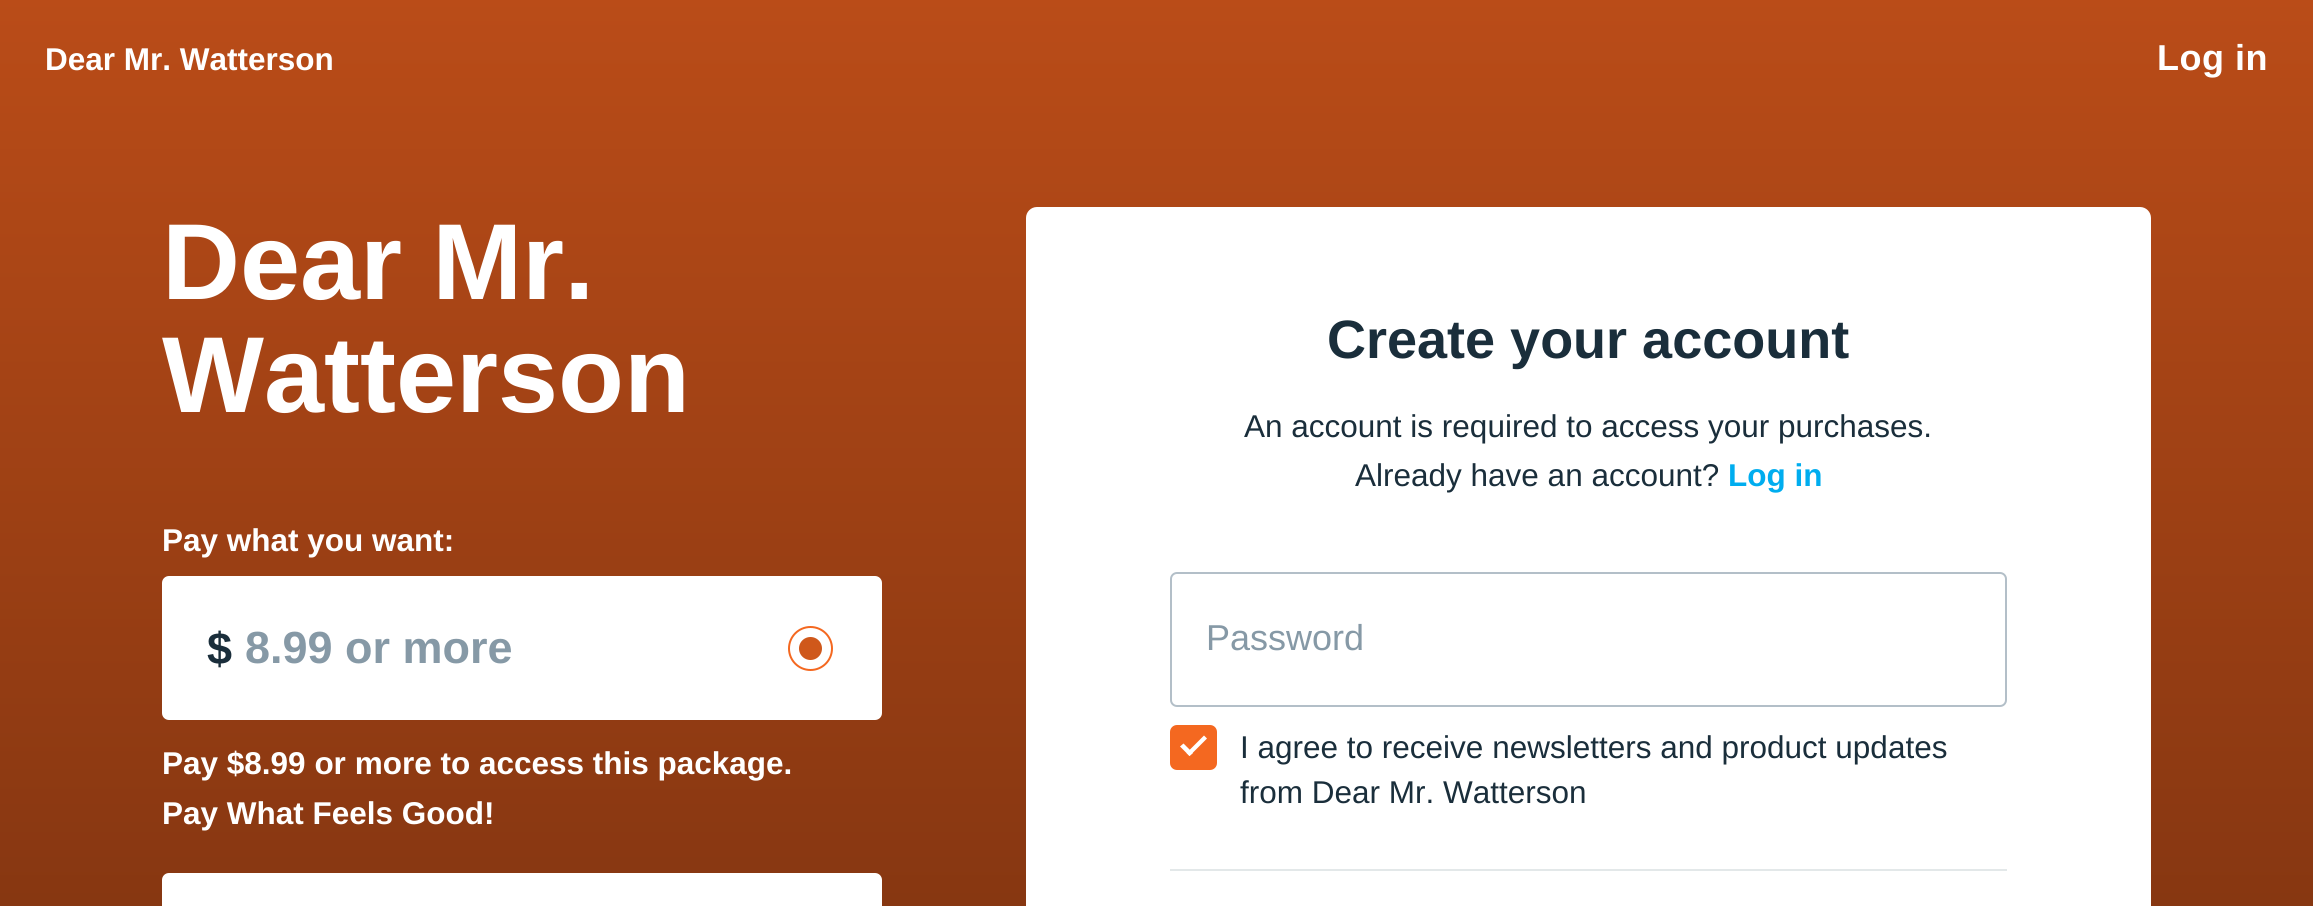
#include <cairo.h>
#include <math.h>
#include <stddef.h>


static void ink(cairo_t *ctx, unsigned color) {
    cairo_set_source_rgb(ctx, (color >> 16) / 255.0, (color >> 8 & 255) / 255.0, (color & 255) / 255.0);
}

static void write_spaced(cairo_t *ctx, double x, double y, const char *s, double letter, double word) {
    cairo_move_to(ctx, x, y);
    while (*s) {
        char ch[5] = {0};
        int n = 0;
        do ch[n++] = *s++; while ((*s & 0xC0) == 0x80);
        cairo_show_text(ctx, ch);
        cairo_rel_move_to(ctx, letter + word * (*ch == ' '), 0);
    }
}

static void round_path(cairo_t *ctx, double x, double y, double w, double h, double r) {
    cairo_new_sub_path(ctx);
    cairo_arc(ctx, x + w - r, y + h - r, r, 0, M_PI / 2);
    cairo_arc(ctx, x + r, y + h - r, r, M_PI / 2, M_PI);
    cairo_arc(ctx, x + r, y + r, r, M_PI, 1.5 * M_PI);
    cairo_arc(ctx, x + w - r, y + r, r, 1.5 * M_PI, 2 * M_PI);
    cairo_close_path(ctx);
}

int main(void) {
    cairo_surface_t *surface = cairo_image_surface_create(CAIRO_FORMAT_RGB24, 2313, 906);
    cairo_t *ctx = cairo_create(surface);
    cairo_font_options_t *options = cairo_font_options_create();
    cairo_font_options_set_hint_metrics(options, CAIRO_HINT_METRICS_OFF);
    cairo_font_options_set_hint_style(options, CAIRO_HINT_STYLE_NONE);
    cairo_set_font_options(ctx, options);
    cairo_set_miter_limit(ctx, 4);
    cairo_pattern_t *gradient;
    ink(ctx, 0xFFFFFF);
    cairo_paint(ctx);
    gradient = cairo_pattern_create_linear(1157, 0, 1157, 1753);
    cairo_pattern_add_color_stop_rgba(gradient, 0, 0.729, 0.298, 0.094, 1);
    cairo_pattern_add_color_stop_rgba(gradient, 1, 0.341, 0.137, 0.043, 1);
    cairo_set_source(ctx, gradient);
    cairo_pattern_destroy(gradient);
    cairo_rectangle(ctx, 0, 0, 2313, 906);
    cairo_fill(ctx);
    cairo_select_font_face(ctx, "Liberation Sans", CAIRO_FONT_SLANT_NORMAL, CAIRO_FONT_WEIGHT_BOLD);
    cairo_set_font_size(ctx, 31.5);
    ink(ctx, 0xFFFFFF);
    cairo_move_to(ctx, 45, 70);
    cairo_show_text(ctx, "Dear Mr. Watterson");
    cairo_set_font_size(ctx, 36);
    write_spaced(ctx, 2157, 70, "Log in", 0.5, 0);
    cairo_set_font_size(ctx, 108);
    cairo_move_to(ctx, 162, 299);
    cairo_show_text(ctx, "Dear Mr.");
    cairo_move_to(ctx, 162, 412);
    cairo_show_text(ctx, "Watterson");
    cairo_set_font_size(ctx, 31.5);
    cairo_move_to(ctx, 162, 551);
    cairo_show_text(ctx, "Pay what you want:");
    round_path(ctx, 162, 576, 720, 144, 7);
    cairo_fill(ctx);
    cairo_set_font_size(ctx, 45);
    ink(ctx, 0x1A2E3B);
    cairo_move_to(ctx, 207, 664);
    cairo_show_text(ctx, "$");
    ink(ctx, 0x8699A6);
    cairo_move_to(ctx, 245, 663);
    cairo_show_text(ctx, "8.99 or more");
    ink(ctx, 0xCF581B);
    cairo_new_path(ctx);
    cairo_arc(ctx, 810.5, 648.5, 17, 0, 2 * M_PI);
    cairo_fill_preserve(ctx);
    ink(ctx, 0xFFFFFF);
    cairo_set_line_width(ctx, 11);
    cairo_stroke(ctx);
    cairo_arc(ctx, 810.5, 648.5, 21.5, 0, 2 * M_PI);
    ink(ctx, 0xF46820);
    cairo_set_line_width(ctx, 2);
    cairo_stroke(ctx);
    cairo_set_font_size(ctx, 31.5);
    ink(ctx, 0xFFFFFF);
    cairo_move_to(ctx, 162, 774);
    cairo_show_text(ctx, "Pay $8.99 or more to access this package.");
    cairo_move_to(ctx, 162, 824);
    cairo_show_text(ctx, "Pay What Feels Good!");
    round_path(ctx, 162, 873, 720, 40, 7);
    cairo_fill(ctx);
    round_path(ctx, 1026, 207, 1125, 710, 11);
    cairo_fill(ctx);
    cairo_set_font_size(ctx, 54);
    ink(ctx, 0x1A2E3B);
    cairo_move_to(ctx, 1327, 358);
    cairo_show_text(ctx, "Create your account");
    cairo_select_font_face(ctx, "Liberation Sans", CAIRO_FONT_SLANT_NORMAL, CAIRO_FONT_WEIGHT_NORMAL);
    cairo_set_font_size(ctx, 31.5);
    cairo_move_to(ctx, 1244, 437);
    cairo_show_text(ctx, "An account is required to access your purchases.");
    cairo_move_to(ctx, 1355, 486);
    cairo_show_text(ctx, "Already have an account?");
    cairo_select_font_face(ctx, "Liberation Sans", CAIRO_FONT_SLANT_NORMAL, CAIRO_FONT_WEIGHT_BOLD);
    ink(ctx, 0x00ADEF);
    cairo_move_to(ctx, 1728, 486);
    cairo_show_text(ctx, "Log in");
    round_path(ctx, 1171, 573, 835, 133, 6);
    ink(ctx, 0xB3BFC8);
    cairo_stroke(ctx);
    cairo_select_font_face(ctx, "Liberation Sans", CAIRO_FONT_SLANT_NORMAL, CAIRO_FONT_WEIGHT_NORMAL);
    cairo_set_font_size(ctx, 36);
    ink(ctx, 0x8699A6);
    cairo_move_to(ctx, 1206, 650);
    cairo_show_text(ctx, "Password");
    ink(ctx, 0xF46820);
    round_path(ctx, 1170, 725, 47, 45, 7);
    cairo_fill(ctx);
    ink(ctx, 0xFFFFFF);
    cairo_new_path(ctx);
    cairo_move_to(ctx, 1186.5, 753);
    cairo_line_to(ctx, 1204, 735.5);
    cairo_line_to(ctx, 1207, 738.5);
    cairo_line_to(ctx, 1189.5, 756);
    cairo_close_path(ctx);
    cairo_fill(ctx);
    cairo_new_path(ctx);
    cairo_move_to(ctx, 1180, 746.5);
    cairo_line_to(ctx, 1183.5, 743.5);
    cairo_line_to(ctx, 1193, 753);
    cairo_line_to(ctx, 1189.5, 756);
    cairo_close_path(ctx);
    cairo_fill(ctx);
    cairo_set_font_size(ctx, 31.5);
    ink(ctx, 0x1A2E3B);
    cairo_move_to(ctx, 1240, 758);
    cairo_show_text(ctx, "I agree to receive newsletters and product updates");
    cairo_move_to(ctx, 1240, 803);
    cairo_show_text(ctx, "from Dear Mr. Watterson");
    ink(ctx, 0xE3E8E9);
    cairo_rectangle(ctx, 1170, 869, 837, 2);
    cairo_fill(ctx);
    cairo_surface_write_to_png(surface, "image.png");
    cairo_font_options_destroy(options);
    cairo_destroy(ctx);
    cairo_surface_destroy(surface);
    return 0;
}
